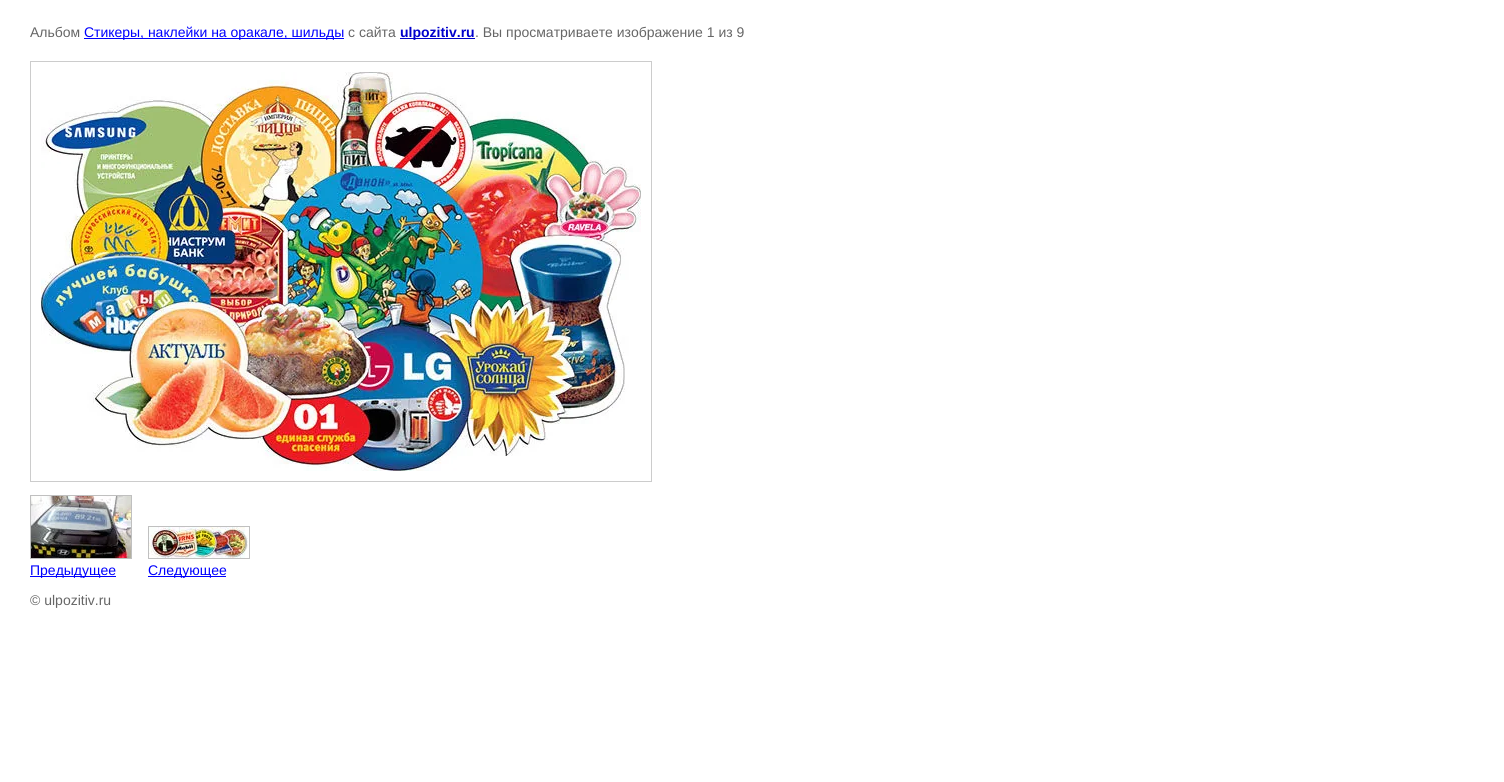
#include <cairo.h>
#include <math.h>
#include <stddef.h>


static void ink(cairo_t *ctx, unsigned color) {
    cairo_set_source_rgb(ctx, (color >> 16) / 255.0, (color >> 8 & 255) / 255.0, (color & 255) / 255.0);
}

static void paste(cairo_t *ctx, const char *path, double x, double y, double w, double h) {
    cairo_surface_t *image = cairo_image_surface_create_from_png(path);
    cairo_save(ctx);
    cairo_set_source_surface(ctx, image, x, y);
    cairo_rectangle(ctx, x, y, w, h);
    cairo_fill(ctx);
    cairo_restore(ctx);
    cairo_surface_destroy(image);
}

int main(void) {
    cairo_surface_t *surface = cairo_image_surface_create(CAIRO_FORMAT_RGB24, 1504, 782);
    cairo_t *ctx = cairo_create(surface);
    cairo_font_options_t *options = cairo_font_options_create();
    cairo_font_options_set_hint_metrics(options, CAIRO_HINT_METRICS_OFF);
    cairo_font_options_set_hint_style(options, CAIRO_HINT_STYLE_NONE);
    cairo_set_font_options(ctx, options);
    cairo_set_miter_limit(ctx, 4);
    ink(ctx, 0xFFFFFF);
    cairo_paint(ctx);
    cairo_select_font_face(ctx, "Liberation Sans", CAIRO_FONT_SLANT_NORMAL, CAIRO_FONT_WEIGHT_NORMAL);
    cairo_set_font_size(ctx, 14);
    ink(ctx, 0x666666);
    cairo_move_to(ctx, 30, 37);
    cairo_show_text(ctx, "Альбом");
    ink(ctx, 0x0000FF);
    cairo_rectangle(ctx, 84, 38, 260, 1);
    cairo_fill(ctx);
    cairo_move_to(ctx, 84, 37);
    cairo_show_text(ctx, "Стикеры, наклейки на оракале, шильды");
    ink(ctx, 0x666666);
    cairo_move_to(ctx, 348, 37);
    cairo_show_text(ctx, "с сайта");
    ink(ctx, 0x0000CC);
    cairo_rectangle(ctx, 400, 38, 75, 1);
    cairo_fill(ctx);
    cairo_select_font_face(ctx, "Liberation Sans", CAIRO_FONT_SLANT_NORMAL, CAIRO_FONT_WEIGHT_BOLD);
    cairo_move_to(ctx, 400, 37);
    cairo_show_text(ctx, "ulpozitiv.ru");
    cairo_select_font_face(ctx, "Liberation Sans", CAIRO_FONT_SLANT_NORMAL, CAIRO_FONT_WEIGHT_NORMAL);
    ink(ctx, 0x666666);
    cairo_move_to(ctx, 475, 37);
    cairo_show_text(ctx, ". Вы просматриваете изображение 1 из 9");
    cairo_rectangle(ctx, 30.5, 61.5, 621, 420);
    ink(ctx, 0xCCCCCC);
    cairo_set_line_width(ctx, 1);
    cairo_stroke(ctx);
    paste(ctx, "media/1.png", 41, 72, 600, 399);
    cairo_rectangle(ctx, 30.5, 495.5, 101, 63);
    ink(ctx, 0xC0C0C0);
    cairo_stroke(ctx);
    paste(ctx, "media/2.png", 31, 496, 100, 62);
    ink(ctx, 0x0000FF);
    cairo_rectangle(ctx, 30, 576, 86, 1);
    cairo_fill(ctx);
    cairo_move_to(ctx, 30, 575);
    cairo_show_text(ctx, "Предыдущее");
    cairo_rectangle(ctx, 148.5, 526.5, 101, 32);
    ink(ctx, 0xC0C0C0);
    cairo_stroke(ctx);
    paste(ctx, "media/3.png", 149, 527, 99, 31);
    ink(ctx, 0x0000FF);
    cairo_rectangle(ctx, 148, 576, 78, 1);
    cairo_fill(ctx);
    cairo_move_to(ctx, 148, 575);
    cairo_show_text(ctx, "Следующее");
    ink(ctx, 0x666666);
    cairo_move_to(ctx, 30, 605);
    cairo_show_text(ctx, "© ulpozitiv.ru");
    cairo_surface_write_to_png(surface, "image.png");
    cairo_font_options_destroy(options);
    cairo_destroy(ctx);
    cairo_surface_destroy(surface);
    return 0;
}
